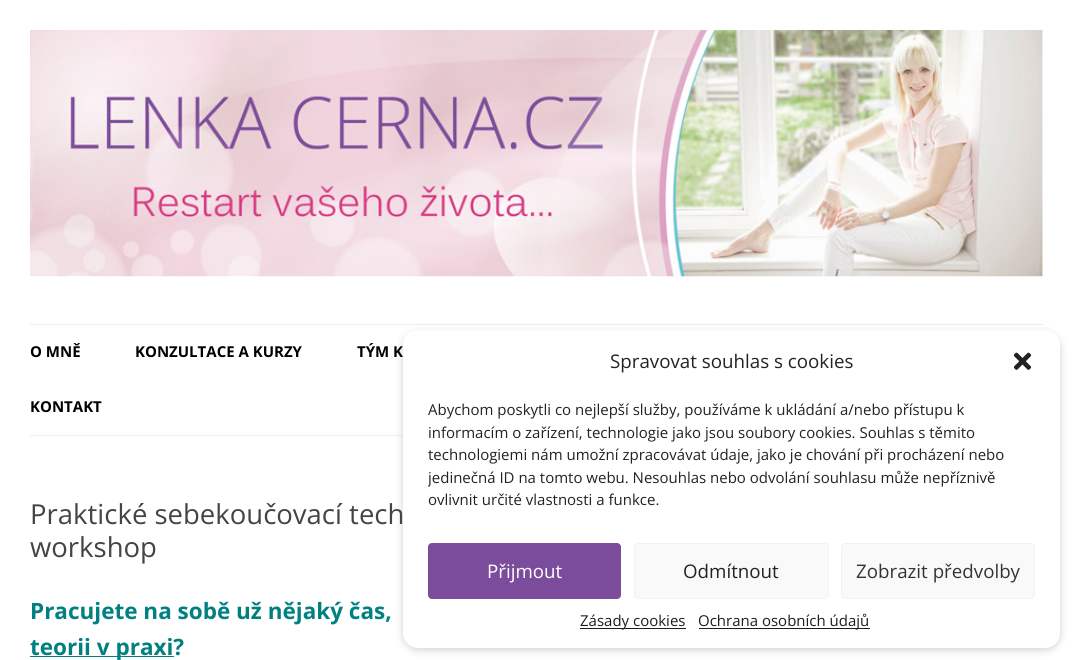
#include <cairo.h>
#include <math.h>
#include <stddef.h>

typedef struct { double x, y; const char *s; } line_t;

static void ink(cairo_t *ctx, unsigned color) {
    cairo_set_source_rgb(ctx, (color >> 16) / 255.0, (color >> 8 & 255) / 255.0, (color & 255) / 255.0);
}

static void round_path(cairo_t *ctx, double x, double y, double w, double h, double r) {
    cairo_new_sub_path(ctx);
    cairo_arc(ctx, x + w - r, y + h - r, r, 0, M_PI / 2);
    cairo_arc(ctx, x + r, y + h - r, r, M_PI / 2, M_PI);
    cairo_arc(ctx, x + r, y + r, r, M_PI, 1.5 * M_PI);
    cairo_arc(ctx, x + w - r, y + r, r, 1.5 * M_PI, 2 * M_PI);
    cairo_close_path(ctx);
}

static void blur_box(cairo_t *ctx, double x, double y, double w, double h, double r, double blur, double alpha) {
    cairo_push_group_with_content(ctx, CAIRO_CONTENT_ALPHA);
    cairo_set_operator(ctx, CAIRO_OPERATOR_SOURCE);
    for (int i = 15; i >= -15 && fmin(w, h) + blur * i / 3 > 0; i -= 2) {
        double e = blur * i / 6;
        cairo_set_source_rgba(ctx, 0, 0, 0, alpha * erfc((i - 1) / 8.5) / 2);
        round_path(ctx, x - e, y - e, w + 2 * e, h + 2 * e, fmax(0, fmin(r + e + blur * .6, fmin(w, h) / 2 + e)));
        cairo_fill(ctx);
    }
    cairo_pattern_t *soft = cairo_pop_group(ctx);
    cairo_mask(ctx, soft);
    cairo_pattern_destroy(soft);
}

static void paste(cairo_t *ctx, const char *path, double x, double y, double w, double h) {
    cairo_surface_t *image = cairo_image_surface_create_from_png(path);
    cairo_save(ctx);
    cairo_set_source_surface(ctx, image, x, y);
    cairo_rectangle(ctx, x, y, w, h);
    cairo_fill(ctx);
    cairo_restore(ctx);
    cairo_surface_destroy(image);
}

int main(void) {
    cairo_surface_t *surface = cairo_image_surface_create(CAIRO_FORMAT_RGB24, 1072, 660);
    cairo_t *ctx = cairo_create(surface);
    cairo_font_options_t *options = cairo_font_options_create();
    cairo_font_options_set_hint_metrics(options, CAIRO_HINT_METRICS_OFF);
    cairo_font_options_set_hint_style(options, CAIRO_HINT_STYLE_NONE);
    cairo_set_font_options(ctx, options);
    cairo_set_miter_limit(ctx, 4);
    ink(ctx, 0xFFFFFF);
    cairo_paint(ctx);
    paste(ctx, "media/1.png", 30, 30, 1013, 247);
    ink(ctx, 0xEDEDED);
    cairo_rectangle(ctx, 30, 324, 1013, 1);
    cairo_fill(ctx);
    cairo_rectangle(ctx, 30, 435, 373, 1);
    cairo_fill(ctx);
    cairo_select_font_face(ctx, "Open Sans", CAIRO_FONT_SLANT_NORMAL, CAIRO_FONT_WEIGHT_BOLD);
    cairo_set_font_size(ctx, 15);
    ink(ctx, 0x000000);
    {
        static const line_t items[] = {
            {30, 357, "O MNĚ"},
            {135, 357, "KONZULTACE A KURZY"},
            {357, 357, "TÝM K"},
            {30, 412, "KONTAKT"},
        };
        for (size_t i = 0; i < sizeof items / sizeof *items; i++) {
            cairo_move_to(ctx, items[i].x, items[i].y);
            cairo_show_text(ctx, items[i].s);
        }
    }
    cairo_select_font_face(ctx, "Open Sans", CAIRO_FONT_SLANT_NORMAL, CAIRO_FONT_WEIGHT_NORMAL);
    cairo_set_font_size(ctx, 27.5);
    ink(ctx, 0x444444);
    cairo_move_to(ctx, 30, 524);
    cairo_show_text(ctx, "Praktické sebekoučovací tech");
    cairo_move_to(ctx, 30, 557);
    cairo_show_text(ctx, "workshop");
    cairo_select_font_face(ctx, "Open Sans", CAIRO_FONT_SLANT_NORMAL, CAIRO_FONT_WEIGHT_BOLD);
    cairo_set_font_size(ctx, 22.5);
    ink(ctx, 0x008080);
    cairo_move_to(ctx, 30, 619);
    cairo_show_text(ctx, "Pracujete na sobě už nějaký čas,");
    cairo_rectangle(ctx, 30, 656, 144, 1);
    cairo_fill(ctx);
    cairo_move_to(ctx, 30, 655);
    cairo_show_text(ctx, "teorii v praxi?");
    ink(ctx, 0x646464);
    blur_box(ctx, 403, 333, 657, 317, 15, 4, 0.3);
    ink(ctx, 0xFFFFFF);
    round_path(ctx, 403, 330, 657, 318, 15);
    cairo_fill(ctx);
    cairo_select_font_face(ctx, "Open Sans", CAIRO_FONT_SLANT_NORMAL, CAIRO_FONT_WEIGHT_NORMAL);
    cairo_set_font_size(ctx, 18.75);
    ink(ctx, 0x222222);
    cairo_move_to(ctx, 610, 368);
    cairo_show_text(ctx, "Spravovat souhlas s cookies");
    paste(ctx, "media/2.png", 1013, 352, 19, 18);
    cairo_set_font_size(ctx, 15);
    {
        static const line_t items[] = {
            {428, 415, "Abychom poskytli co nejlepší služby, používáme k ukládání a/nebo přístupu k"},
            {428, 438, "informacím o zařízení, technologie jako jsou soubory cookies. Souhlas s těmito"},
            {428, 460, "technologiemi nám umožní zpracovávat údaje, jako je chování při procházení nebo"},
        };
        for (size_t i = 0; i < sizeof items / sizeof *items; i++) {
            cairo_move_to(ctx, items[i].x, items[i].y);
            cairo_show_text(ctx, items[i].s);
        }
    }
    cairo_save(ctx);
    cairo_rectangle(ctx, 428, 399, 607, 119);
    cairo_clip(ctx);
    cairo_move_to(ctx, 428, 483);
    cairo_show_text(ctx, "jedinečná ID na tomto webu. Nesouhlas nebo odvolání souhlasu může nepříznivě");
    cairo_restore(ctx);
    cairo_move_to(ctx, 428, 505);
    cairo_show_text(ctx, "ovlivnit určité vlastnosti a funkce.");
    ink(ctx, 0x7C4C9C);
    round_path(ctx, 428.5, 543.5, 192, 55, 3.5);
    cairo_fill_preserve(ctx);
    cairo_set_line_width(ctx, 1);
    cairo_stroke(ctx);
    cairo_set_font_size(ctx, 18.75);
    ink(ctx, 0xFFFFFF);
    cairo_move_to(ctx, 487, 578);
    cairo_show_text(ctx, "Přijmout");
    ink(ctx, 0xF9F9F9);
    round_path(ctx, 634.5, 543.5, 194, 55, 3.5);
    cairo_fill_preserve(ctx);
    ink(ctx, 0xF2F2F2);
    cairo_stroke(ctx);
    ink(ctx, 0x222222);
    cairo_move_to(ctx, 683, 578);
    cairo_show_text(ctx, "Odmítnout");
    ink(ctx, 0xF9F9F9);
    round_path(ctx, 841.5, 543.5, 193, 55, 3.5);
    cairo_fill_preserve(ctx);
    ink(ctx, 0xF2F2F2);
    cairo_stroke(ctx);
    ink(ctx, 0x333333);
    cairo_move_to(ctx, 856, 578);
    cairo_show_text(ctx, "Zobrazit předvolby");
    ink(ctx, 0x191E23);
    cairo_rectangle(ctx, 580, 628, 106, 1);
    cairo_fill(ctx);
    cairo_set_font_size(ctx, 15);
    cairo_move_to(ctx, 580, 626);
    cairo_show_text(ctx, "Zásady cookies");
    cairo_rectangle(ctx, 699, 628, 171, 1);
    cairo_fill(ctx);
    cairo_move_to(ctx, 698, 626);
    cairo_show_text(ctx, "Ochrana osobních údajů");
    cairo_surface_write_to_png(surface, "image.png");
    cairo_font_options_destroy(options);
    cairo_destroy(ctx);
    cairo_surface_destroy(surface);
    return 0;
}
